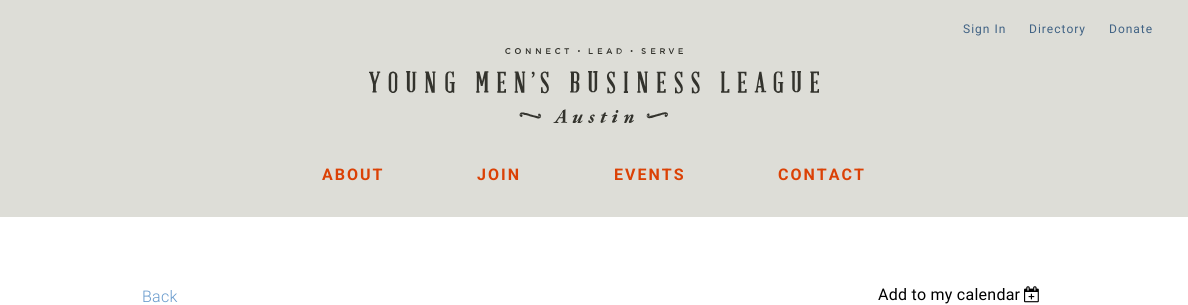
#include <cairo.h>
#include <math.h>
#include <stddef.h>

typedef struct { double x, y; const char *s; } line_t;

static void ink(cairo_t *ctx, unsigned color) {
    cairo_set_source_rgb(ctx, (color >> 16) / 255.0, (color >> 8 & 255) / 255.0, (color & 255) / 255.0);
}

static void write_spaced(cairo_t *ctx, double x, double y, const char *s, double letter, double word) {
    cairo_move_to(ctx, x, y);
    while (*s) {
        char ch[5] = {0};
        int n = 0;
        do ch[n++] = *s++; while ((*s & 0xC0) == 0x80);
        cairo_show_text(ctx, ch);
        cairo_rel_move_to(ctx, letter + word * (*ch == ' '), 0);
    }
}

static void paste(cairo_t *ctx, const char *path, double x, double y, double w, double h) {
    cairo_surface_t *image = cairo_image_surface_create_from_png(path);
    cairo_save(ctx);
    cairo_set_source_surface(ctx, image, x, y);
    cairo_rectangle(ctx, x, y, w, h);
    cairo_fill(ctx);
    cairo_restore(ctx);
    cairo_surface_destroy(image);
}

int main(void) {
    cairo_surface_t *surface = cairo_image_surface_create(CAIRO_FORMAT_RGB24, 1188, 305);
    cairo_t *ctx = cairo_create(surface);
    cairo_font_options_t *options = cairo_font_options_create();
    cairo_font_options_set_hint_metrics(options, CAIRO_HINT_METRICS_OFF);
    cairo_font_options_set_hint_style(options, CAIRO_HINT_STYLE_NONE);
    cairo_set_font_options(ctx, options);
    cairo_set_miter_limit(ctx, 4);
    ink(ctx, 0xFFFFFF);
    cairo_paint(ctx);
    ink(ctx, 0xDDDDD7);
    cairo_rectangle(ctx, 0, 0, 1188, 217);
    cairo_fill(ctx);
    cairo_select_font_face(ctx, "Roboto", CAIRO_FONT_SLANT_NORMAL, CAIRO_FONT_WEIGHT_NORMAL);
    cairo_set_font_size(ctx, 12);
    ink(ctx, 0x406284);
    {
        static const line_t items[] = {
            {963, 33, "Sign In"},
            {1029, 33, "Directory"},
            {1109, 33, "Donate"},
        };
        for (size_t i = 0; i < sizeof items / sizeof *items; i++) {
            write_spaced(ctx, items[i].x, items[i].y, items[i].s, 1, 0);
        }
    }
    paste(ctx, "media/1.png", 369, 48, 450, 75);
    cairo_select_font_face(ctx, "Roboto", CAIRO_FONT_SLANT_NORMAL, CAIRO_FONT_WEIGHT_BOLD);
    cairo_set_font_size(ctx, 16);
    ink(ctx, 0xDB4105);
    {
        static const line_t items[] = {
            {322, 180, "ABOUT"},
            {477, 180, "JOIN"},
            {614, 180, "EVENTS"},
            {778, 180, "CONTACT"},
        };
        for (size_t i = 0; i < sizeof items / sizeof *items; i++) {
            write_spaced(ctx, items[i].x, items[i].y, items[i].s, 2, 0);
        }
    }
    cairo_select_font_face(ctx, "Roboto Light", CAIRO_FONT_SLANT_NORMAL, CAIRO_FONT_WEIGHT_NORMAL);
    ink(ctx, 0x6699CC);
    write_spaced(ctx, 142, 302, "Back", 0.25, 0);
    cairo_select_font_face(ctx, "Roboto", CAIRO_FONT_SLANT_NORMAL, CAIRO_FONT_WEIGHT_NORMAL);
    ink(ctx, 0x000000);
    write_spaced(ctx, 878, 300, "Add to my calendar", 0.25, 0);
    paste(ctx, "media/2.png", 1024, 286, 15, 17);
    cairo_surface_write_to_png(surface, "image.png");
    cairo_font_options_destroy(options);
    cairo_destroy(ctx);
    cairo_surface_destroy(surface);
    return 0;
}
